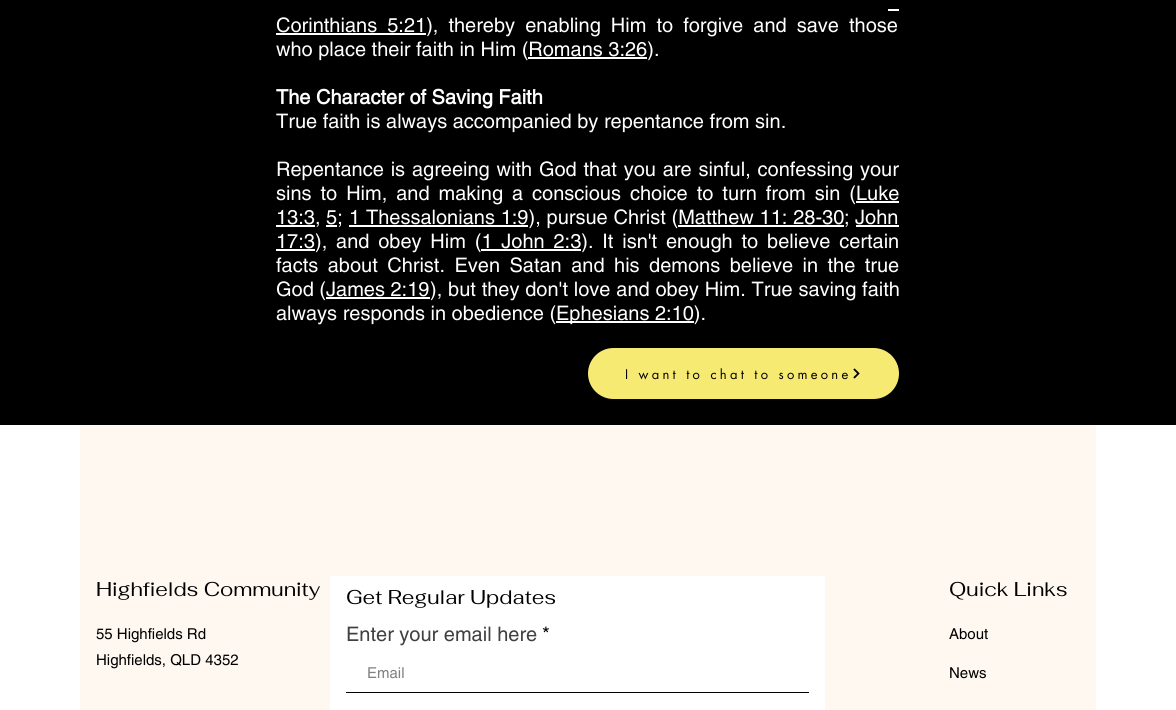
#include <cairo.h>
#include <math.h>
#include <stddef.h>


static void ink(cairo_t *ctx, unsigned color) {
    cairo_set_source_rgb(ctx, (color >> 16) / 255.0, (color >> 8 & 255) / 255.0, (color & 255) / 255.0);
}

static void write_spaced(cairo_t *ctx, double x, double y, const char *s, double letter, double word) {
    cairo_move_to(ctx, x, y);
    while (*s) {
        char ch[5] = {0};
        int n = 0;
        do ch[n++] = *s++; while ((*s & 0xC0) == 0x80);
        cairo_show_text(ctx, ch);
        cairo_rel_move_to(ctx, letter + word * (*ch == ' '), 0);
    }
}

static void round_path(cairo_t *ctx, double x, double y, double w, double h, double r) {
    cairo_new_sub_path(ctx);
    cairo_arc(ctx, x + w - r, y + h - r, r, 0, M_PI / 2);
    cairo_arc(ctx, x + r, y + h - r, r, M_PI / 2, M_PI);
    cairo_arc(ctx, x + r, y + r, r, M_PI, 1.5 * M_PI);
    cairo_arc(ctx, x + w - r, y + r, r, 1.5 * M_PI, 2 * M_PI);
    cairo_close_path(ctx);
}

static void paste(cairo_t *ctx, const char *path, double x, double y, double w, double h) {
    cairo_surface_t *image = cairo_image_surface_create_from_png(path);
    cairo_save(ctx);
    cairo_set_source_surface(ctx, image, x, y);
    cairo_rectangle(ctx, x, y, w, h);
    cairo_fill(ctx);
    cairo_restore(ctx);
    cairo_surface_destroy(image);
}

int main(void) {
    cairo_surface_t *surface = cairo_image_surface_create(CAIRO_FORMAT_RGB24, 1176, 710);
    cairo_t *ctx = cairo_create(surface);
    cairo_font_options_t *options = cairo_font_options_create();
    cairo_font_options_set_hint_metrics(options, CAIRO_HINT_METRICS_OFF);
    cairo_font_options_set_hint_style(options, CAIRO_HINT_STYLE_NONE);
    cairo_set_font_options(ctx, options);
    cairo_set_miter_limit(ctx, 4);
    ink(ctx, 0x000000);
    cairo_paint(ctx);
    ink(ctx, 0xFFFFFF);
    cairo_rectangle(ctx, 276, 33, 150, 2);
    cairo_fill(ctx);
    cairo_select_font_face(ctx, "helvetica", CAIRO_FONT_SLANT_NORMAL, CAIRO_FONT_WEIGHT_NORMAL);
    cairo_set_font_size(ctx, 20);
    write_spaced(ctx, 276, 32, "Corinthians 5:21), thereby enabling Him to forgive and save those", 0, 4.5);
    cairo_rectangle(ctx, 888, 9, 11, 2);
    cairo_fill(ctx);
    cairo_move_to(ctx, 276, 56);
    cairo_show_text(ctx, "who place their faith in Him (Romans 3:26).");
    cairo_rectangle(ctx, 528, 57, 119, 2);
    cairo_fill(ctx);
    cairo_select_font_face(ctx, "helvetica", CAIRO_FONT_SLANT_NORMAL, CAIRO_FONT_WEIGHT_BOLD);
    cairo_move_to(ctx, 276, 104);
    cairo_show_text(ctx, "The Character of Saving Faith");
    cairo_select_font_face(ctx, "helvetica", CAIRO_FONT_SLANT_NORMAL, CAIRO_FONT_WEIGHT_NORMAL);
    cairo_move_to(ctx, 276, 128);
    cairo_show_text(ctx, "True faith is always accompanied by repentance from sin.");
    write_spaced(ctx, 276, 176, "Repentance is agreeing with God that you are sinful, confessing your", 0, 1.25);
    write_spaced(ctx, 276, 200, "sins to Him, and making a conscious choice to turn from sin (", 0, 3.4);
    cairo_rectangle(ctx, 856, 201, 43, 2);
    cairo_fill(ctx);
    cairo_move_to(ctx, 856, 200);
    cairo_show_text(ctx, "Luke");
    cairo_rectangle(ctx, 276, 225, 39, 2);
    cairo_fill(ctx);
    cairo_move_to(ctx, 276, 224);
    cairo_show_text(ctx, "13:3, 5;");
    cairo_rectangle(ctx, 326, 225, 11, 2);
    cairo_fill(ctx);
    cairo_rectangle(ctx, 349, 225, 179, 2);
    cairo_fill(ctx);
    write_spaced(ctx, 349, 224, "1 Thessalonians 1:9), pursue Christ (Matthew 11: 28-30", 0, 0.25);
    cairo_rectangle(ctx, 678, 225, 166, 2);
    cairo_fill(ctx);
    cairo_move_to(ctx, 844, 224);
    cairo_show_text(ctx, "; John");
    cairo_rectangle(ctx, 856, 225, 43, 2);
    cairo_fill(ctx);
    cairo_move_to(ctx, 276, 248);
    cairo_show_text(ctx, "17:3");
    write_spaced(ctx, 315, 248, "), and obey Him (1 John 2:3). It isn't enough to believe certain", 0, 3.25);
    cairo_rectangle(ctx, 276, 249, 39, 2);
    cairo_fill(ctx);
    cairo_rectangle(ctx, 481, 249, 100, 2);
    cairo_fill(ctx);
    write_spaced(ctx, 276, 272, "facts about Christ. Even Satan and his demons believe in the true", 0, 3.9);
    cairo_move_to(ctx, 276, 296);
    cairo_show_text(ctx, "God (James 2:19");
    cairo_rectangle(ctx, 326, 297, 104, 2);
    cairo_fill(ctx);
    write_spaced(ctx, 430, 296, "), but they don't love and obey Him. True saving faith", 0, 0.25);
    cairo_move_to(ctx, 276, 320);
    cairo_show_text(ctx, "always responds in obedience (");
    cairo_rectangle(ctx, 556, 321, 138, 2);
    cairo_fill(ctx);
    cairo_move_to(ctx, 556, 320);
    cairo_show_text(ctx, "Ephesians 2:10).");
    ink(ctx, 0x05080B);
    cairo_new_path(ctx);
    cairo_move_to(ctx, 588, 374);
    cairo_curve_to(ctx, 588, 389, 599, 400, 614, 400);
    cairo_line_to(ctx, 874, 400);
    cairo_curve_to(ctx, 888, 400, 899, 389, 899, 374);
    cairo_curve_to(ctx, 899, 388, 887, 399, 874, 399);
    cairo_line_to(ctx, 614, 399);
    cairo_curve_to(ctx, 600, 399, 588, 388, 588, 374);
    cairo_close_path(ctx);
    cairo_fill(ctx);
    ink(ctx, 0xF7EA73);
    round_path(ctx, 588, 348, 311, 51, 25.5);
    cairo_fill(ctx);
    cairo_select_font_face(ctx, "futura", CAIRO_FONT_SLANT_NORMAL, CAIRO_FONT_WEIGHT_NORMAL);
    cairo_set_font_size(ctx, 13);
    ink(ctx, 0x000000);
    write_spaced(ctx, 625, 379, "I want to chat to someone", 3.25, 0);
    paste(ctx, "media/1.png", 853, 368, 7, 11);
    ink(ctx, 0xFFFFFF);
    cairo_rectangle(ctx, 0, 425, 1176, 285);
    cairo_fill(ctx);
    ink(ctx, 0xFFF8F1);
    cairo_rectangle(ctx, 80, 425, 1016, 285);
    cairo_fill(ctx);
    cairo_select_font_face(ctx, "Fahkwang", CAIRO_FONT_SLANT_NORMAL, CAIRO_FONT_WEIGHT_NORMAL);
    cairo_set_font_size(ctx, 20);
    ink(ctx, 0x000000);
    cairo_move_to(ctx, 96, 596);
    cairo_show_text(ctx, "Highfields Community");
    cairo_select_font_face(ctx, "helvetica", CAIRO_FONT_SLANT_NORMAL, CAIRO_FONT_WEIGHT_NORMAL);
    cairo_set_font_size(ctx, 15);
    cairo_move_to(ctx, 96, 639);
    cairo_show_text(ctx, "55 Highfields Rd");
    cairo_move_to(ctx, 96, 665);
    cairo_show_text(ctx, "Highfields, QLD 4352");
    ink(ctx, 0xFFFFFF);
    cairo_rectangle(ctx, 330, 576, 495, 134);
    cairo_fill(ctx);
    cairo_select_font_face(ctx, "Fahkwang", CAIRO_FONT_SLANT_NORMAL, CAIRO_FONT_WEIGHT_NORMAL);
    cairo_set_font_size(ctx, 20);
    ink(ctx, 0x000000);
    cairo_move_to(ctx, 346, 604);
    cairo_show_text(ctx, "Get Regular Updates");
    cairo_select_font_face(ctx, "helvetica", CAIRO_FONT_SLANT_NORMAL, CAIRO_FONT_WEIGHT_NORMAL);
    ink(ctx, 0x404040);
    cairo_move_to(ctx, 346, 641);
    cairo_show_text(ctx, "Enter your email here");
    ink(ctx, 0x000000);
    cairo_move_to(ctx, 542, 641);
    cairo_show_text(ctx, "*");
    cairo_rectangle(ctx, 346, 692, 463, 1);
    cairo_fill(ctx);
    cairo_set_font_size(ctx, 15);
    ink(ctx, 0x808080);
    cairo_move_to(ctx, 367, 678);
    cairo_show_text(ctx, "Email");
    cairo_select_font_face(ctx, "Fahkwang", CAIRO_FONT_SLANT_NORMAL, CAIRO_FONT_WEIGHT_NORMAL);
    cairo_set_font_size(ctx, 20);
    ink(ctx, 0x000000);
    cairo_move_to(ctx, 949, 596);
    cairo_show_text(ctx, "Quick Links");
    cairo_select_font_face(ctx, "helvetica", CAIRO_FONT_SLANT_NORMAL, CAIRO_FONT_WEIGHT_NORMAL);
    cairo_set_font_size(ctx, 15);
    cairo_move_to(ctx, 949, 639);
    cairo_show_text(ctx, "About");
    cairo_move_to(ctx, 949, 678);
    cairo_show_text(ctx, "News");
    cairo_surface_write_to_png(surface, "image.png");
    cairo_font_options_destroy(options);
    cairo_destroy(ctx);
    cairo_surface_destroy(surface);
    return 0;
}
